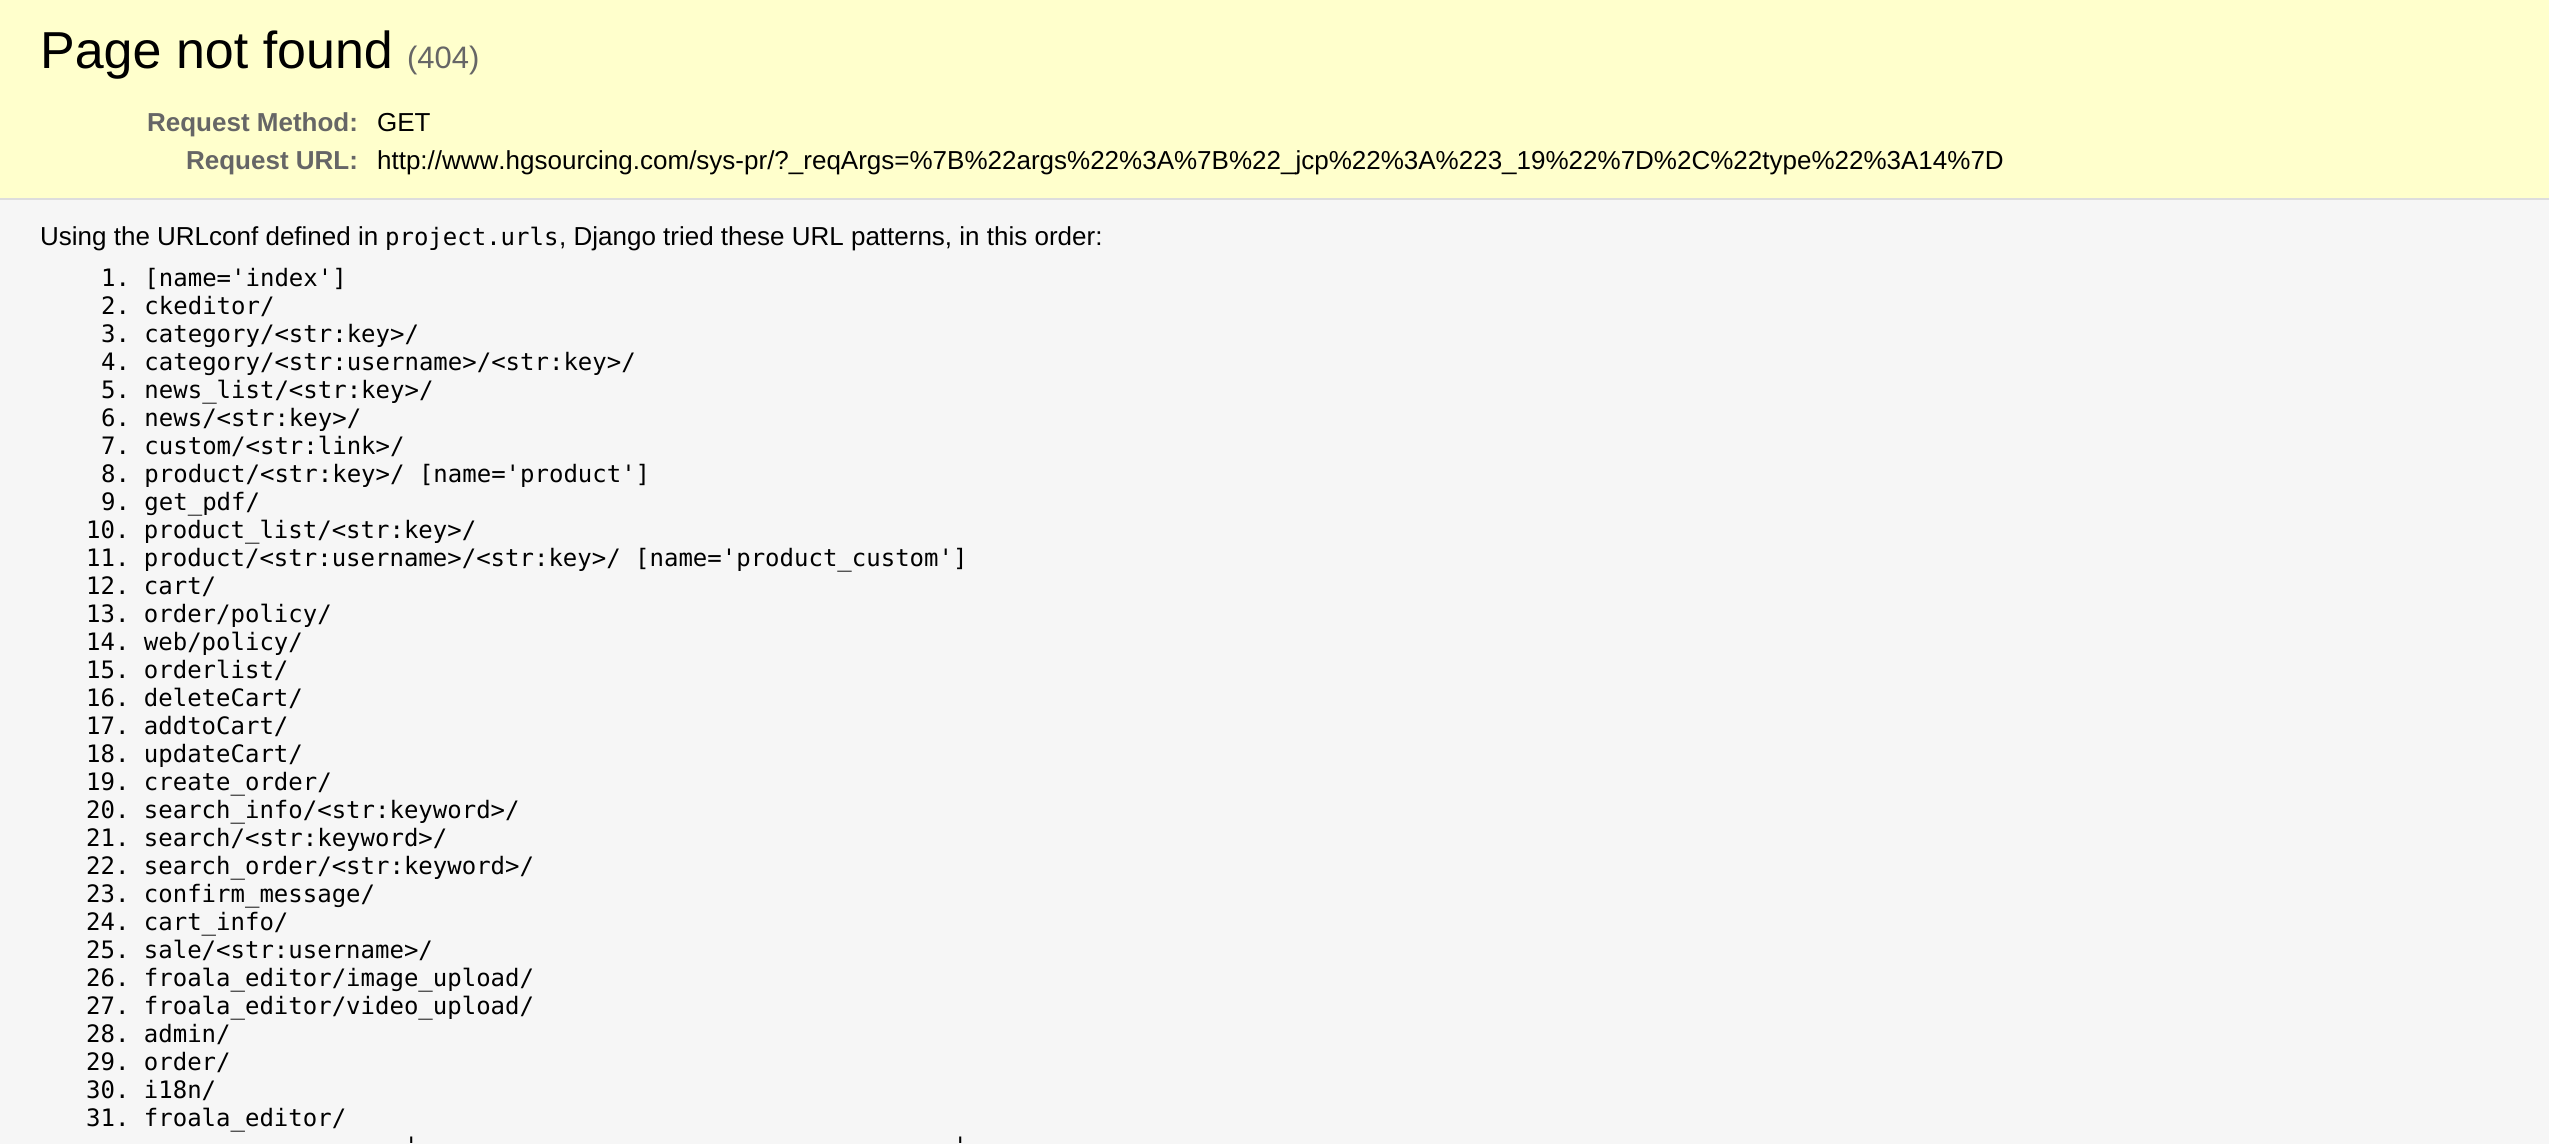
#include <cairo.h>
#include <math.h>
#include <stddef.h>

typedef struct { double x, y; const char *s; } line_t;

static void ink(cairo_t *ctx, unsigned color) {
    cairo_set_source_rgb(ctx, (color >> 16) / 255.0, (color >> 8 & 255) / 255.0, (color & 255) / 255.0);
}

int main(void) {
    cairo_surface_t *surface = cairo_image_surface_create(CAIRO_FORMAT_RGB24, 2549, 1144);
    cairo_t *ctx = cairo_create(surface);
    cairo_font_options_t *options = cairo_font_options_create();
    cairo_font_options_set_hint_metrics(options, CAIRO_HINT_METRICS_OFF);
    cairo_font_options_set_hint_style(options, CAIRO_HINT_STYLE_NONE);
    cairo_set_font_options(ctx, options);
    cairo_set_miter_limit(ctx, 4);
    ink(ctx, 0xFFFFCC);
    cairo_paint(ctx);
    ink(ctx, 0xDDDDDD);
    cairo_rectangle(ctx, 0, 198, 2549, 2);
    cairo_fill(ctx);
    cairo_select_font_face(ctx, "Liberation Sans", CAIRO_FONT_SLANT_NORMAL, CAIRO_FONT_WEIGHT_NORMAL);
    cairo_set_font_size(ctx, 52);
    ink(ctx, 0x000000);
    cairo_move_to(ctx, 40, 68);
    cairo_show_text(ctx, "Page not found");
    cairo_set_font_size(ctx, 31);
    ink(ctx, 0x666666);
    cairo_move_to(ctx, 407, 68);
    cairo_show_text(ctx, "(404)");
    cairo_select_font_face(ctx, "Liberation Sans", CAIRO_FONT_SLANT_NORMAL, CAIRO_FONT_WEIGHT_BOLD);
    cairo_set_font_size(ctx, 26);
    cairo_move_to(ctx, 147, 131);
    cairo_show_text(ctx, "Request Method:");
    cairo_select_font_face(ctx, "Liberation Sans", CAIRO_FONT_SLANT_NORMAL, CAIRO_FONT_WEIGHT_NORMAL);
    ink(ctx, 0x000000);
    cairo_move_to(ctx, 377, 131);
    cairo_show_text(ctx, "GET");
    cairo_select_font_face(ctx, "Liberation Sans", CAIRO_FONT_SLANT_NORMAL, CAIRO_FONT_WEIGHT_BOLD);
    ink(ctx, 0x666666);
    cairo_move_to(ctx, 186, 169);
    cairo_show_text(ctx, "Request URL:");
    cairo_select_font_face(ctx, "Liberation Sans", CAIRO_FONT_SLANT_NORMAL, CAIRO_FONT_WEIGHT_NORMAL);
    ink(ctx, 0x000000);
    cairo_move_to(ctx, 377, 169);
    cairo_show_text(ctx, "http://www.hgsourcing.com/sys-pr/?_reqArgs=%7B%22args%22%3A%7B%22_jcp%22%3A%223_19%22%7D%2C%22type%22%3A14%7D");
    ink(ctx, 0xF6F6F6);
    cairo_rectangle(ctx, 0, 200, 2549, 944);
    cairo_fill(ctx);
    ink(ctx, 0x000000);
    cairo_move_to(ctx, 40, 245);
    cairo_show_text(ctx, "Using the URLconf defined in");
    cairo_select_font_face(ctx, "DejaVu Sans Mono", CAIRO_FONT_SLANT_NORMAL, CAIRO_FONT_WEIGHT_NORMAL);
    cairo_set_font_size(ctx, 24);
    cairo_move_to(ctx, 385, 245);
    cairo_show_text(ctx, "project.urls");
    cairo_select_font_face(ctx, "Liberation Sans", CAIRO_FONT_SLANT_NORMAL, CAIRO_FONT_WEIGHT_NORMAL);
    cairo_set_font_size(ctx, 26);
    cairo_move_to(ctx, 559, 245);
    cairo_show_text(ctx, ", Django tried these URL patterns, in this order:");
    cairo_select_font_face(ctx, "DejaVu Sans Mono", CAIRO_FONT_SLANT_NORMAL, CAIRO_FONT_WEIGHT_NORMAL);
    cairo_set_font_size(ctx, 24);
    {
        static const line_t items[] = {
            {101, 286, "1. [name='index']"},
            {101, 314, "2. ckeditor/"},
            {101, 342, "3. category/<str:key>/"},
            {101, 370, "4. category/<str:username>/<str:key>/"},
            {101, 398, "5. news_list/<str:key>/"},
            {101, 426, "6. news/<str:key>/"},
            {101, 454, "7. custom/<str:link>/"},
            {101, 482, "8. product/<str:key>/ [name='product']"},
            {101, 510, "9. get_pdf/"},
            {86, 538, "10. product_list/<str:key>/"},
            {86, 566, "11. product/<str:username>/<str:key>/ [name='product_custom']"},
            {86, 594, "12. cart/"},
            {86, 622, "13. order/policy/"},
            {86, 650, "14. web/policy/"},
            {86, 678, "15. orderlist/"},
            {86, 706, "16. deleteCart/"},
            {86, 734, "17. addtoCart/"},
            {86, 762, "18. updateCart/"},
            {86, 790, "19. create_order/"},
            {86, 818, "20. search_info/<str:keyword>/"},
            {86, 846, "21. search/<str:keyword>/"},
            {86, 874, "22. search_order/<str:keyword>/"},
            {86, 902, "23. confirm_message/"},
            {86, 930, "24. cart_info/"},
            {86, 958, "25. sale/<str:username>/"},
            {86, 986, "26. froala_editor/image_upload/"},
            {86, 1014, "27. froala_editor/video_upload/"},
            {86, 1042, "28. admin/"},
            {86, 1070, "29. order/"},
            {86, 1098, "30. i18n/"},
            {86, 1126, "31. froala_editor/"},
            {404, 1154, "'"},
            {953, 1154, "'"},
        };
        for (size_t i = 0; i < sizeof items / sizeof *items; i++) {
            cairo_move_to(ctx, items[i].x, items[i].y);
            cairo_show_text(ctx, items[i].s);
        }
    }
    cairo_surface_write_to_png(surface, "image.png");
    cairo_font_options_destroy(options);
    cairo_destroy(ctx);
    cairo_surface_destroy(surface);
    return 0;
}
